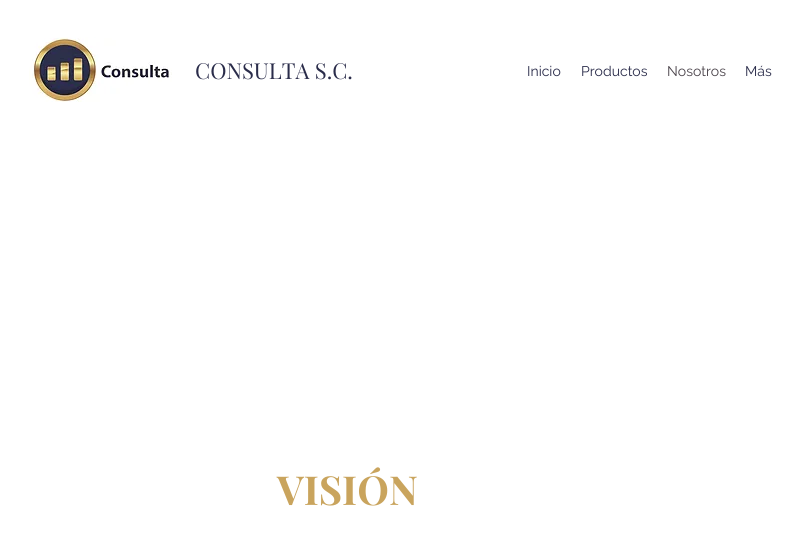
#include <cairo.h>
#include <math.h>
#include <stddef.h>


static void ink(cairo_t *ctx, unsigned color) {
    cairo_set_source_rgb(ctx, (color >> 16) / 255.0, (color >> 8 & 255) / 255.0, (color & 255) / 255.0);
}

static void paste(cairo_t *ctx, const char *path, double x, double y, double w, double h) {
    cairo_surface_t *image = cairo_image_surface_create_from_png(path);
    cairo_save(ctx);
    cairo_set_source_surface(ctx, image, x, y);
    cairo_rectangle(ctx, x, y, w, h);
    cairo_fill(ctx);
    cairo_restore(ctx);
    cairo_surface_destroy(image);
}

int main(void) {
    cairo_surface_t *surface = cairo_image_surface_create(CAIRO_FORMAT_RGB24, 795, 560);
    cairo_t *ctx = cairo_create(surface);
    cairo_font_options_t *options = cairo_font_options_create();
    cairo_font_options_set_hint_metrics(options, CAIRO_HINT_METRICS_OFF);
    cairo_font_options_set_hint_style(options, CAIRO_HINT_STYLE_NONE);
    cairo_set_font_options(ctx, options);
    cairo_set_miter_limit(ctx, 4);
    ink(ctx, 0xFFFFFF);
    cairo_paint(ctx);
    paste(ctx, "media/1.png", 29, 37, 143, 65);
    cairo_select_font_face(ctx, "Playfair Display", CAIRO_FONT_SLANT_NORMAL, CAIRO_FONT_WEIGHT_NORMAL);
    cairo_set_font_size(ctx, 22);
    ink(ctx, 0x2A2C4A);
    cairo_move_to(ctx, 195, 79);
    cairo_show_text(ctx, "CONSULTA S.C.");
    cairo_select_font_face(ctx, "Raleway", CAIRO_FONT_SLANT_NORMAL, CAIRO_FONT_WEIGHT_NORMAL);
    cairo_set_font_size(ctx, 14);
    cairo_move_to(ctx, 527, 76);
    cairo_show_text(ctx, "Inicio");
    cairo_move_to(ctx, 581, 76);
    cairo_show_text(ctx, "Productos");
    ink(ctx, 0x4A434A);
    cairo_move_to(ctx, 667, 76);
    cairo_show_text(ctx, "Nosotros");
    ink(ctx, 0x2A2C4A);
    cairo_move_to(ctx, 745, 76);
    cairo_show_text(ctx, "Más");
    cairo_select_font_face(ctx, "Playfair Display", CAIRO_FONT_SLANT_NORMAL, CAIRO_FONT_WEIGHT_BOLD);
    cairo_set_font_size(ctx, 40);
    ink(ctx, 0xC9A45D);
    cairo_move_to(ctx, 277, 505);
    cairo_show_text(ctx, "VISIÓN");
    cairo_surface_write_to_png(surface, "image.png");
    cairo_font_options_destroy(options);
    cairo_destroy(ctx);
    cairo_surface_destroy(surface);
    return 0;
}
